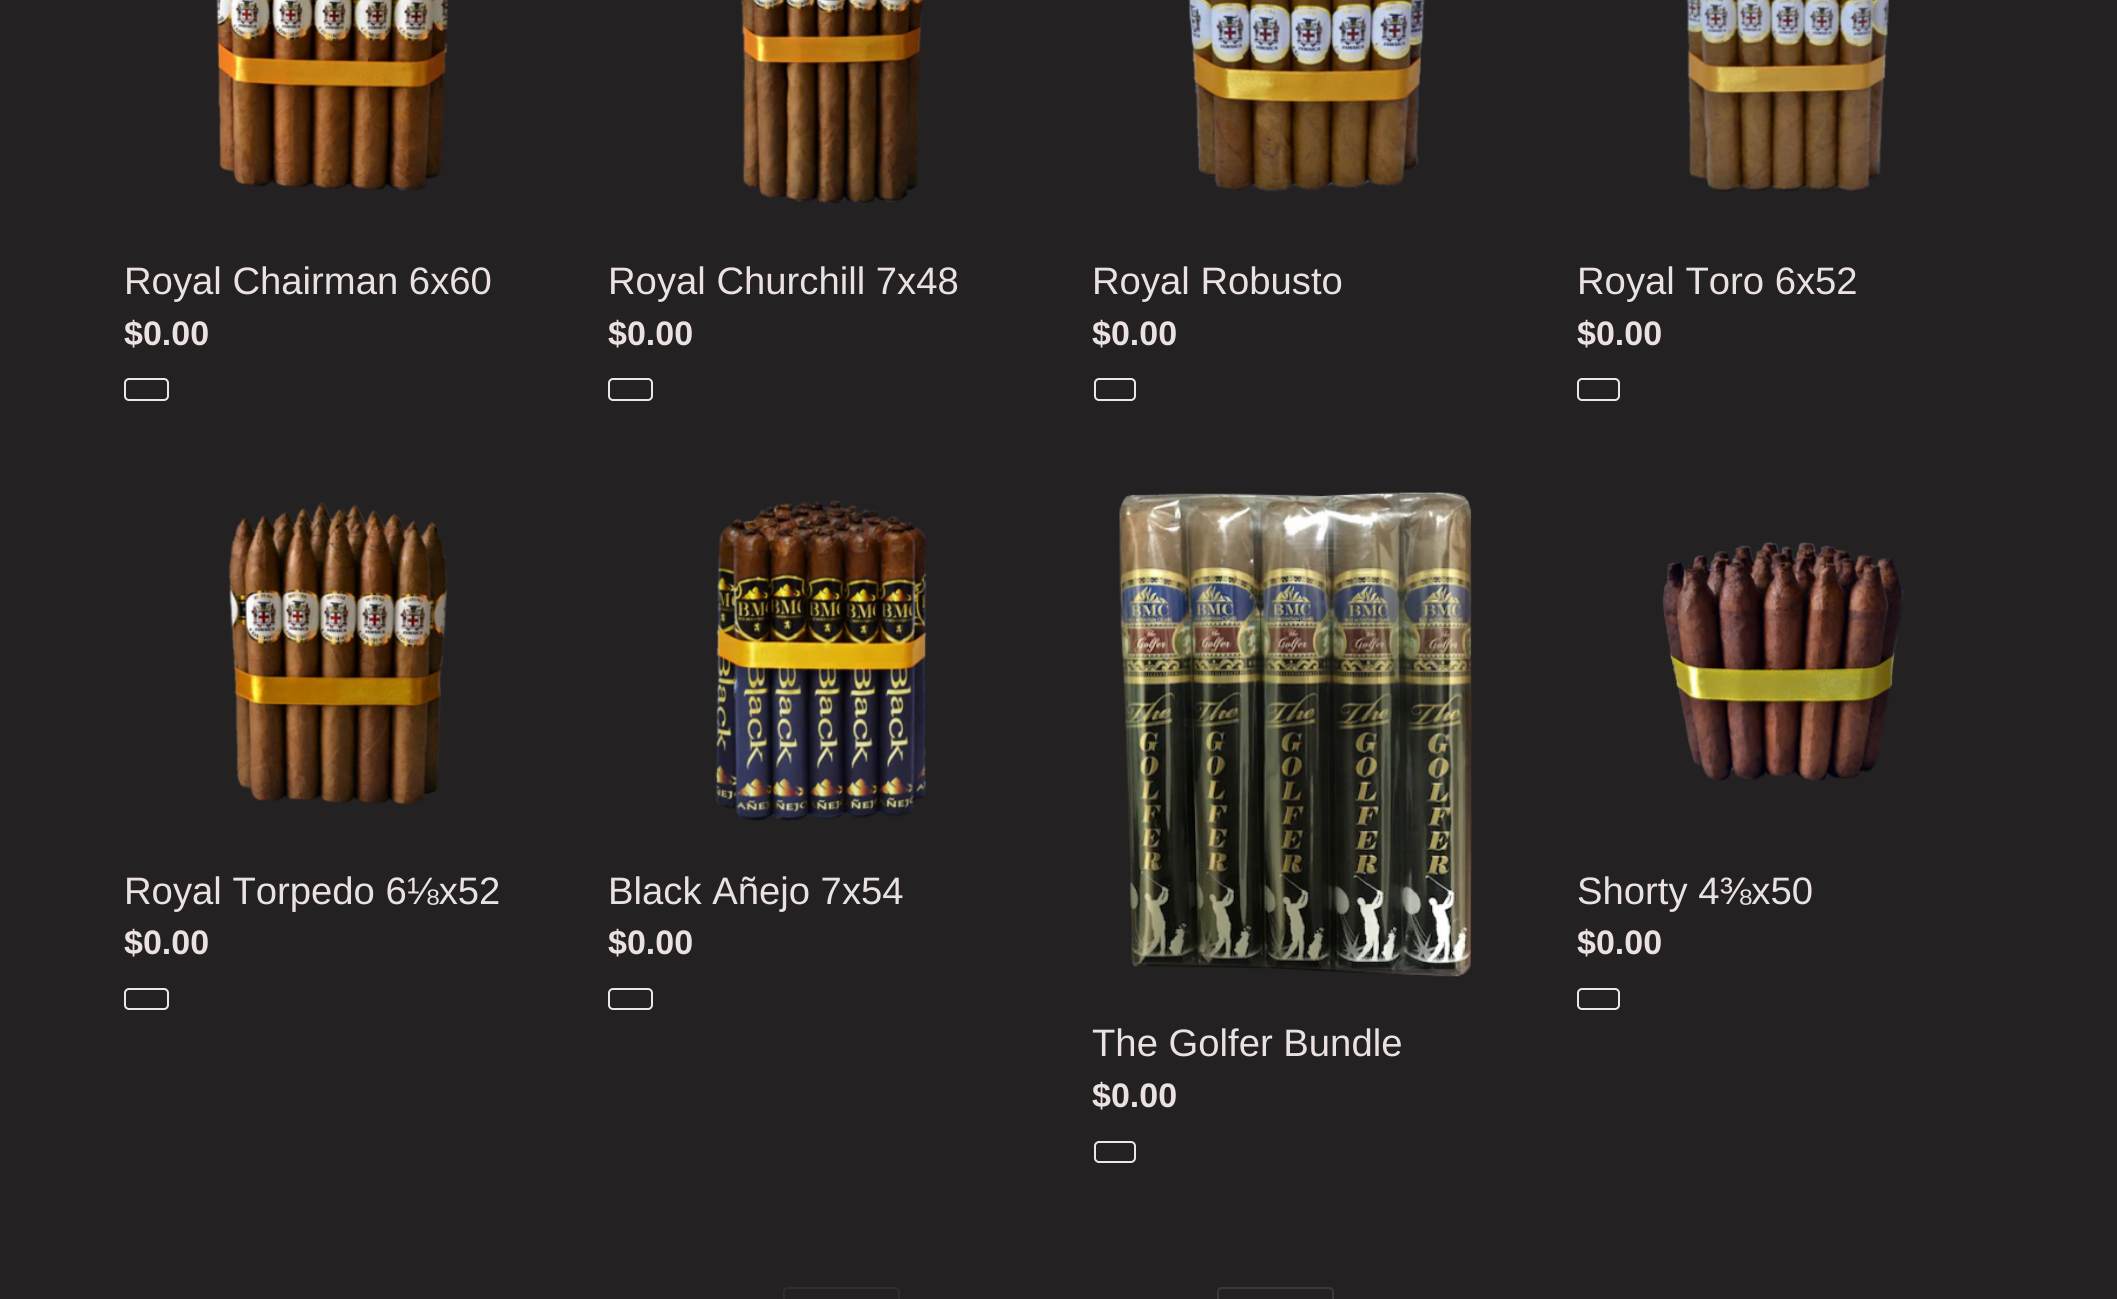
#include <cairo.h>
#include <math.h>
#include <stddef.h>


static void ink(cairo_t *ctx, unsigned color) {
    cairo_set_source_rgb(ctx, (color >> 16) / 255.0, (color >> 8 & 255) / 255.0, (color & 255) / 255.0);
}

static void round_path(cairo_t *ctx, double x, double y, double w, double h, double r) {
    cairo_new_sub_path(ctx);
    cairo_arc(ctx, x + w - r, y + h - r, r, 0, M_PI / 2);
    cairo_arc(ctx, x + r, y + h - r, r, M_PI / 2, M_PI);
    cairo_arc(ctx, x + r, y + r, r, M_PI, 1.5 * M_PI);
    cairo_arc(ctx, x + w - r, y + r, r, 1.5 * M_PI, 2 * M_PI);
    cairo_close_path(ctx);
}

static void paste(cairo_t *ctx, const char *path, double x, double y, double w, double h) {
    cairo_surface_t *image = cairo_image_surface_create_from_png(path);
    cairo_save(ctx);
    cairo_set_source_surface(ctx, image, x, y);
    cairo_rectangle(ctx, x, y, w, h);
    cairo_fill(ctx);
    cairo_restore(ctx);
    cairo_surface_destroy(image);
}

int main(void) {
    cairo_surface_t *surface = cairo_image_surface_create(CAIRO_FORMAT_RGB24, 2117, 1299);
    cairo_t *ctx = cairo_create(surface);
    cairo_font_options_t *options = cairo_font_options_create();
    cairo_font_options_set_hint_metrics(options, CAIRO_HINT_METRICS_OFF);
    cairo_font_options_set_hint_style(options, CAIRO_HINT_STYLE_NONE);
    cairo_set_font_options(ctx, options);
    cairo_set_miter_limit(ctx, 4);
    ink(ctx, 0x232121);
    cairo_paint(ctx);
    paste(ctx, "media/1.png", 216, 0, 233, 191);
    cairo_select_font_face(ctx, "Liberation Sans", CAIRO_FONT_SLANT_NORMAL, CAIRO_FONT_WEIGHT_NORMAL);
    cairo_set_font_size(ctx, 38.25);
    ink(ctx, 0xEBE1E1);
    cairo_move_to(ctx, 124, 294);
    cairo_show_text(ctx, "Royal Chairman 6x60");
    cairo_select_font_face(ctx, "Liberation Sans", CAIRO_FONT_SLANT_NORMAL, CAIRO_FONT_WEIGHT_BOLD);
    cairo_set_font_size(ctx, 34);
    cairo_move_to(ctx, 124, 345);
    cairo_show_text(ctx, "$0.00");
    round_path(ctx, 125, 379, 43, 21, 4);
    ink(ctx, 0xEFE5E5);
    cairo_stroke(ctx);
    paste(ctx, "media/2.png", 741, 0, 182, 205);
    cairo_select_font_face(ctx, "Liberation Sans", CAIRO_FONT_SLANT_NORMAL, CAIRO_FONT_WEIGHT_NORMAL);
    cairo_set_font_size(ctx, 38.25);
    ink(ctx, 0xEBE1E1);
    cairo_move_to(ctx, 608, 294);
    cairo_show_text(ctx, "Royal Churchill 7x48");
    cairo_select_font_face(ctx, "Liberation Sans", CAIRO_FONT_SLANT_NORMAL, CAIRO_FONT_WEIGHT_BOLD);
    cairo_set_font_size(ctx, 34);
    cairo_move_to(ctx, 608, 345);
    cairo_show_text(ctx, "$0.00");
    round_path(ctx, 609, 379, 43, 21, 4);
    ink(ctx, 0xEFE5E5);
    cairo_stroke(ctx);
    paste(ctx, "media/3.png", 1188, 0, 237, 192);
    cairo_select_font_face(ctx, "Liberation Sans", CAIRO_FONT_SLANT_NORMAL, CAIRO_FONT_WEIGHT_NORMAL);
    cairo_set_font_size(ctx, 38.25);
    ink(ctx, 0xEBE1E1);
    cairo_move_to(ctx, 1092, 294);
    cairo_show_text(ctx, "Royal Robusto");
    cairo_select_font_face(ctx, "Liberation Sans", CAIRO_FONT_SLANT_NORMAL, CAIRO_FONT_WEIGHT_BOLD);
    cairo_set_font_size(ctx, 34);
    cairo_move_to(ctx, 1092, 345);
    cairo_show_text(ctx, "$0.00");
    round_path(ctx, 1095, 379, 40, 21, 4);
    ink(ctx, 0xEFE5E5);
    cairo_stroke(ctx);
    paste(ctx, "media/4.png", 1686, 0, 204, 192);
    cairo_select_font_face(ctx, "Liberation Sans", CAIRO_FONT_SLANT_NORMAL, CAIRO_FONT_WEIGHT_NORMAL);
    cairo_set_font_size(ctx, 38.25);
    ink(ctx, 0xEBE1E1);
    cairo_move_to(ctx, 1577, 294);
    cairo_show_text(ctx, "Royal Toro 6x52");
    cairo_select_font_face(ctx, "Liberation Sans", CAIRO_FONT_SLANT_NORMAL, CAIRO_FONT_WEIGHT_BOLD);
    cairo_set_font_size(ctx, 34);
    cairo_move_to(ctx, 1577, 345);
    cairo_show_text(ctx, "$0.00");
    round_path(ctx, 1578, 379, 41, 21, 4);
    ink(ctx, 0xEFE5E5);
    cairo_stroke(ctx);
    paste(ctx, "media/5.png", 228, 502, 220, 303);
    cairo_select_font_face(ctx, "Liberation Sans", CAIRO_FONT_SLANT_NORMAL, CAIRO_FONT_WEIGHT_NORMAL);
    cairo_set_font_size(ctx, 38.25);
    ink(ctx, 0xEBE1E1);
    cairo_move_to(ctx, 124, 904);
    cairo_show_text(ctx, "Royal Torpedo 6⅛x52");
    cairo_select_font_face(ctx, "Liberation Sans", CAIRO_FONT_SLANT_NORMAL, CAIRO_FONT_WEIGHT_BOLD);
    cairo_set_font_size(ctx, 34);
    cairo_move_to(ctx, 124, 954);
    cairo_show_text(ctx, "$0.00");
    round_path(ctx, 125, 989, 43, 20, 4);
    ink(ctx, 0xEFE5E5);
    cairo_stroke(ctx);
    paste(ctx, "media/6.png", 714, 500, 213, 321);
    cairo_select_font_face(ctx, "Liberation Sans", CAIRO_FONT_SLANT_NORMAL, CAIRO_FONT_WEIGHT_NORMAL);
    cairo_set_font_size(ctx, 38.25);
    ink(ctx, 0xEBE1E1);
    cairo_move_to(ctx, 608, 904);
    cairo_show_text(ctx, "Black Añejo 7x54");
    cairo_select_font_face(ctx, "Liberation Sans", CAIRO_FONT_SLANT_NORMAL, CAIRO_FONT_WEIGHT_BOLD);
    cairo_set_font_size(ctx, 34);
    cairo_move_to(ctx, 608, 954);
    cairo_show_text(ctx, "$0.00");
    round_path(ctx, 609, 989, 43, 20, 4);
    ink(ctx, 0xEFE5E5);
    cairo_stroke(ctx);
    paste(ctx, "media/7.png", 1662, 542, 242, 239);
    cairo_select_font_face(ctx, "Liberation Sans", CAIRO_FONT_SLANT_NORMAL, CAIRO_FONT_WEIGHT_NORMAL);
    cairo_set_font_size(ctx, 38.25);
    ink(ctx, 0xEBE1E1);
    cairo_move_to(ctx, 1577, 904);
    cairo_show_text(ctx, "Shorty 4⅜x50");
    cairo_select_font_face(ctx, "Liberation Sans", CAIRO_FONT_SLANT_NORMAL, CAIRO_FONT_WEIGHT_BOLD);
    cairo_set_font_size(ctx, 34);
    cairo_move_to(ctx, 1577, 954);
    cairo_show_text(ctx, "$0.00");
    round_path(ctx, 1578, 989, 41, 20, 4);
    ink(ctx, 0xEFE5E5);
    cairo_stroke(ctx);
    paste(ctx, "media/8.png", 1119, 492, 353, 485);
    cairo_select_font_face(ctx, "Liberation Sans", CAIRO_FONT_SLANT_NORMAL, CAIRO_FONT_WEIGHT_NORMAL);
    cairo_set_font_size(ctx, 38.25);
    ink(ctx, 0xEBE1E1);
    cairo_move_to(ctx, 1092, 1056);
    cairo_show_text(ctx, "The Golfer Bundle");
    cairo_select_font_face(ctx, "Liberation Sans", CAIRO_FONT_SLANT_NORMAL, CAIRO_FONT_WEIGHT_BOLD);
    cairo_set_font_size(ctx, 34);
    cairo_move_to(ctx, 1092, 1107);
    cairo_show_text(ctx, "$0.00");
    round_path(ctx, 1095, 1142, 40, 20, 4);
    ink(ctx, 0xEFE5E5);
    cairo_stroke(ctx);
    round_path(ctx, 784, 1288, 115, 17, 4);
    ink(ctx, 0x2F2E2E);
    cairo_stroke(ctx);
    round_path(ctx, 1218, 1288, 115, 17, 4);
    ink(ctx, 0x3A3A3A);
    cairo_stroke(ctx);
    cairo_surface_write_to_png(surface, "image.png");
    cairo_font_options_destroy(options);
    cairo_destroy(ctx);
    cairo_surface_destroy(surface);
    return 0;
}
